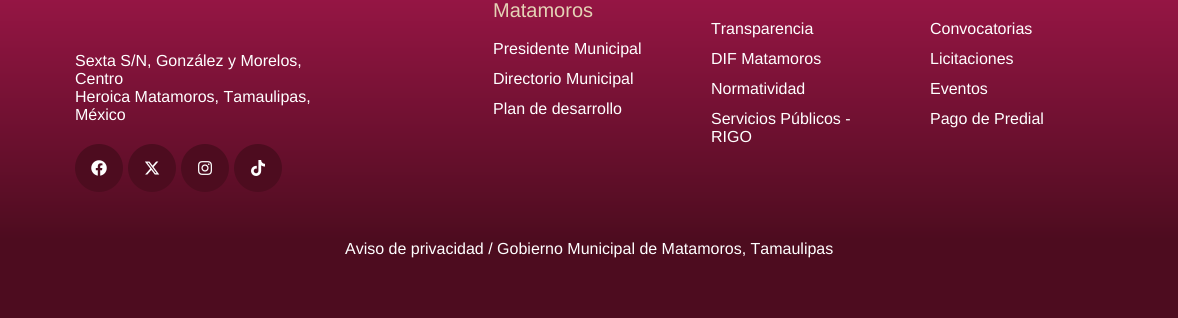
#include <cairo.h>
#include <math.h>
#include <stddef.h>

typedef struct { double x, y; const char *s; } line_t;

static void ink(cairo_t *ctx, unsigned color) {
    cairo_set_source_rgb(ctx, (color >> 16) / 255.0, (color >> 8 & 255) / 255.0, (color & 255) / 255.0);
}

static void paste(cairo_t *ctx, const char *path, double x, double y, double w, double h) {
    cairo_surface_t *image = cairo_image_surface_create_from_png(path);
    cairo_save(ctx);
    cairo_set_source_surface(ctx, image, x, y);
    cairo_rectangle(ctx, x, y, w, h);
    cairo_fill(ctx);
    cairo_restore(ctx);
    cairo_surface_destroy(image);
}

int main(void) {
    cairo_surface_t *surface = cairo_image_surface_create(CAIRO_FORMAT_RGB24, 1178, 318);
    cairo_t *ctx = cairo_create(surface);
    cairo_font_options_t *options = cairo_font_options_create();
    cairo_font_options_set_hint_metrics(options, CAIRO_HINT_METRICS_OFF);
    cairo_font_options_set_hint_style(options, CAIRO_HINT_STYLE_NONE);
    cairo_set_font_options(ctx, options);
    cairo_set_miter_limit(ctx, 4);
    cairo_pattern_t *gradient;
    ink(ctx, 0xFFFFFF);
    cairo_paint(ctx);
    gradient = cairo_pattern_create_linear(589, -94, 589, 240);
    cairo_pattern_add_color_stop_rgba(gradient, 0, 0.694, 0.098, 0.322, 1);
    cairo_pattern_add_color_stop_rgba(gradient, 1, 0.302, 0.047, 0.122, 1);
    cairo_set_source(ctx, gradient);
    cairo_pattern_destroy(gradient);
    cairo_rectangle(ctx, 0, 0, 1178, 240);
    cairo_fill(ctx);
    cairo_select_font_face(ctx, "Liberation Sans", CAIRO_FONT_SLANT_NORMAL, CAIRO_FONT_WEIGHT_NORMAL);
    cairo_set_font_size(ctx, 16);
    ink(ctx, 0xFFFFFF);
    {
        static const line_t items[] = {
            {75, 66, "Sexta S/N, González y Morelos,"},
            {75, 84, "Centro"},
            {75, 102, "Heroica Matamoros, Tamaulipas,"},
            {75, 120, "México"},
        };
        for (size_t i = 0; i < sizeof items / sizeof *items; i++) {
            cairo_move_to(ctx, items[i].x, items[i].y);
            cairo_show_text(ctx, items[i].s);
        }
    }
    ink(ctx, 0x4D0C1F);
    cairo_new_path(ctx);
    cairo_arc(ctx, 99, 168, 24, 0, 2 * M_PI);
    cairo_fill(ctx);
    paste(ctx, "media/1.png", 91, 160, 16, 16);
    cairo_arc(ctx, 152, 168, 24, 0, 2 * M_PI);
    cairo_fill(ctx);
    paste(ctx, "media/2.png", 145, 161, 15, 14);
    cairo_arc(ctx, 205, 168, 24, 0, 2 * M_PI);
    cairo_fill(ctx);
    paste(ctx, "media/3.png", 198, 161, 14, 14);
    cairo_arc(ctx, 258, 168, 24, 0, 2 * M_PI);
    cairo_fill(ctx);
    paste(ctx, "media/4.png", 251, 160, 14, 16);
    cairo_set_font_size(ctx, 20);
    ink(ctx, 0xE4D2B5);
    cairo_move_to(ctx, 493, 17);
    cairo_show_text(ctx, "Matamoros");
    cairo_set_font_size(ctx, 16);
    ink(ctx, 0xFFFFFF);
    {
        static const line_t items[] = {
            {493, 54, "Presidente Municipal"},
            {493, 84, "Directorio Municipal"},
            {493, 114, "Plan de desarrollo"},
            {711, 34, "Transparencia"},
            {711, 64, "DIF Matamoros"},
            {711, 94, "Normatividad"},
            {711, 124, "Servicios Públicos -"},
            {711, 142, "RIGO"},
            {930, 34, "Convocatorias"},
            {930, 64, "Licitaciones"},
            {930, 94, "Eventos"},
            {930, 124, "Pago de Predial"},
        };
        for (size_t i = 0; i < sizeof items / sizeof *items; i++) {
            cairo_move_to(ctx, items[i].x, items[i].y);
            cairo_show_text(ctx, items[i].s);
        }
    }
    ink(ctx, 0x4D0C1F);
    cairo_rectangle(ctx, 0, 240, 1178, 78);
    cairo_fill(ctx);
    ink(ctx, 0xFFFFFF);
    cairo_move_to(ctx, 345, 254);
    cairo_show_text(ctx, "Aviso de privacidad / Gobierno Municipal de Matamoros, Tamaulipas");
    cairo_surface_write_to_png(surface, "image.png");
    cairo_font_options_destroy(options);
    cairo_destroy(ctx);
    cairo_surface_destroy(surface);
    return 0;
}
